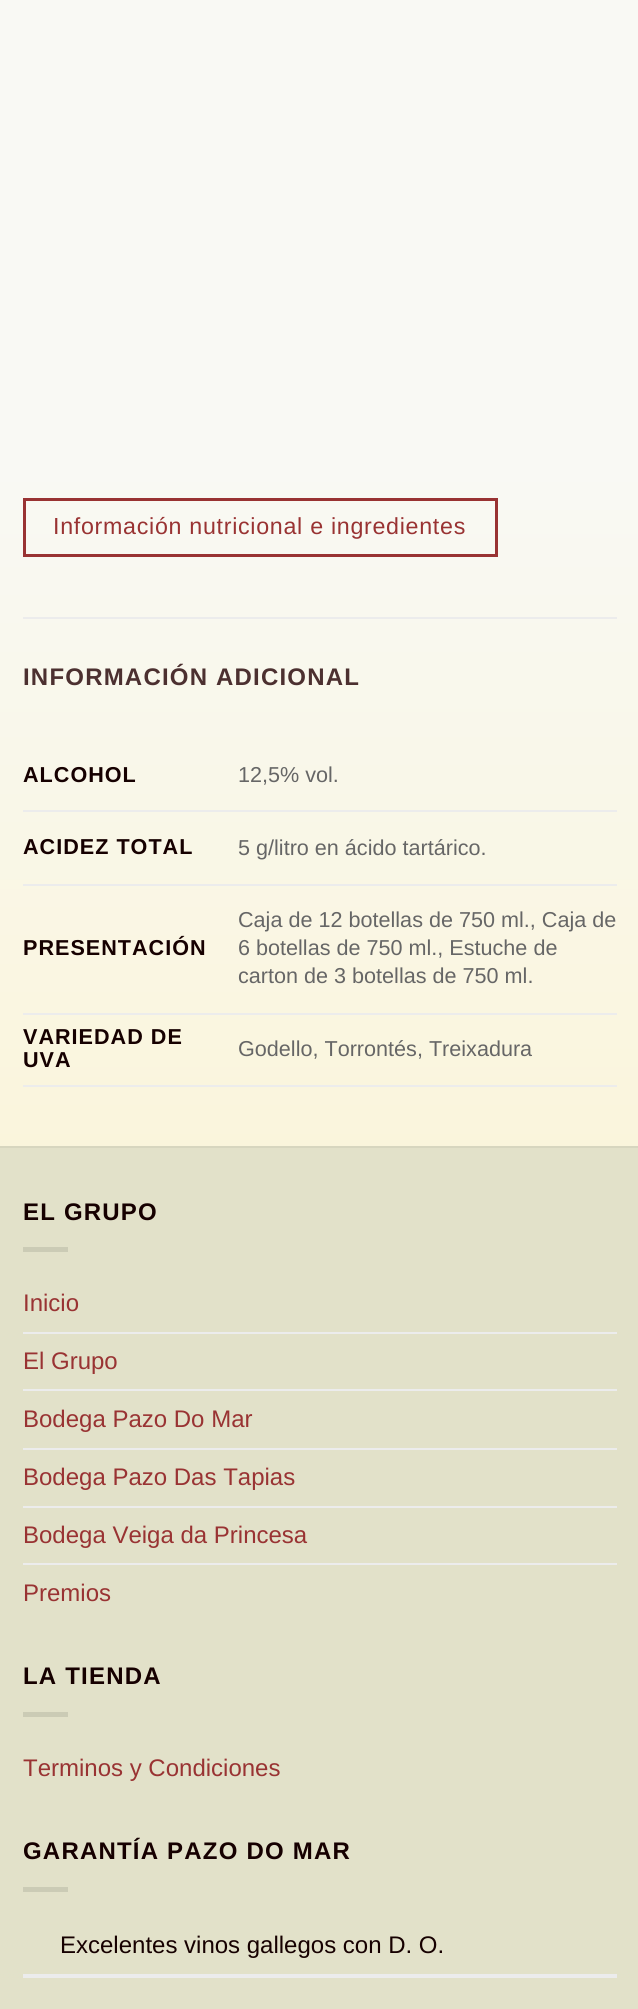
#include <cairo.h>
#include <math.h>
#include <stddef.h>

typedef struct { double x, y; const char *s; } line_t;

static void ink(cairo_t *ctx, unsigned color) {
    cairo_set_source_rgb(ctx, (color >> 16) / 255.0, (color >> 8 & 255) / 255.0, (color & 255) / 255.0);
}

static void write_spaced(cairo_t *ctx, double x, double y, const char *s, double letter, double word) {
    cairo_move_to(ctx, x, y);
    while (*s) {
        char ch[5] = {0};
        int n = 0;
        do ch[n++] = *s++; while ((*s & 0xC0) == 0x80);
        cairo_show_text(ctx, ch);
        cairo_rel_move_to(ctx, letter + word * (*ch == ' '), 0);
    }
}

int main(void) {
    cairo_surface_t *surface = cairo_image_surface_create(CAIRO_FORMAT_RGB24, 638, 2009);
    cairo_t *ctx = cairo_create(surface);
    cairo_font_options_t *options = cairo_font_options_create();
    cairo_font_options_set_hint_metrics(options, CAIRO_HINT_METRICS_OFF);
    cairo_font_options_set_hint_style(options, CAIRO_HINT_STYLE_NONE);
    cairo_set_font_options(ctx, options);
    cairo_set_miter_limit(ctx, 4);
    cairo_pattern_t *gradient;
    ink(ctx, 0xFFFFFF);
    cairo_paint(ctx);
    gradient = cairo_pattern_create_linear(319, -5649, 320, 1146);
    cairo_pattern_add_color_stop_rgba(gradient, 0, 0.98, 0.961, 0.863, 1);
    cairo_pattern_add_color_stop_rgba(gradient, 0.21, 0.976, 0.976, 0.957, 1);
    cairo_pattern_add_color_stop_rgba(gradient, 0.9, 0.976, 0.976, 0.957, 1);
    cairo_pattern_add_color_stop_rgba(gradient, 1, 0.98, 0.961, 0.863, 1);
    cairo_set_source(ctx, gradient);
    cairo_pattern_destroy(gradient);
    cairo_rectangle(ctx, 0, 0, 638, 1146);
    cairo_fill(ctx);
    cairo_rectangle(ctx, 24.5, 499.5, 472, 56);
    ink(ctx, 0x993333);
    cairo_set_line_width(ctx, 3);
    cairo_stroke(ctx);
    cairo_select_font_face(ctx, "Liberation Sans", CAIRO_FONT_SLANT_NORMAL, CAIRO_FONT_WEIGHT_NORMAL);
    cairo_set_font_size(ctx, 23.25);
    write_spaced(ctx, 53, 534, "Información nutricional e ingredientes", 0.7, 0);
    ink(ctx, 0xECECEC);
    cairo_rectangle(ctx, 23, 617, 594, 2);
    cairo_fill(ctx);
    cairo_select_font_face(ctx, "Liberation Sans", CAIRO_FONT_SLANT_NORMAL, CAIRO_FONT_WEIGHT_BOLD);
    cairo_set_font_size(ctx, 24);
    ink(ctx, 0x4C3030);
    write_spaced(ctx, 23, 685, "INFORMACIÓN ADICIONAL", 1.2, 0);
    ink(ctx, 0xECECEC);
    cairo_rectangle(ctx, 23, 810, 594, 2);
    cairo_fill(ctx);
    cairo_set_font_size(ctx, 21.6);
    ink(ctx, 0x160000);
    write_spaced(ctx, 23, 782, "ALCOHOL", 1, 0);
    cairo_select_font_face(ctx, "Liberation Sans", CAIRO_FONT_SLANT_NORMAL, CAIRO_FONT_WEIGHT_NORMAL);
    ink(ctx, 0x666666);
    cairo_move_to(ctx, 238, 782);
    cairo_show_text(ctx, "12,5% vol.");
    ink(ctx, 0xECECEC);
    cairo_rectangle(ctx, 23, 884, 594, 2);
    cairo_fill(ctx);
    cairo_select_font_face(ctx, "Liberation Sans", CAIRO_FONT_SLANT_NORMAL, CAIRO_FONT_WEIGHT_BOLD);
    ink(ctx, 0x160000);
    write_spaced(ctx, 23, 854, "ACIDEZ TOTAL", 1, 0);
    cairo_select_font_face(ctx, "Liberation Sans", CAIRO_FONT_SLANT_NORMAL, CAIRO_FONT_WEIGHT_NORMAL);
    ink(ctx, 0x666666);
    cairo_move_to(ctx, 238, 855);
    cairo_show_text(ctx, "5 g/litro en ácido tartárico.");
    ink(ctx, 0xECECEC);
    cairo_rectangle(ctx, 23, 1013, 594, 2);
    cairo_fill(ctx);
    cairo_select_font_face(ctx, "Liberation Sans", CAIRO_FONT_SLANT_NORMAL, CAIRO_FONT_WEIGHT_BOLD);
    ink(ctx, 0x160000);
    write_spaced(ctx, 23, 955, "PRESENTACIÓN", 1, 0);
    cairo_select_font_face(ctx, "Liberation Sans", CAIRO_FONT_SLANT_NORMAL, CAIRO_FONT_WEIGHT_NORMAL);
    ink(ctx, 0x666666);
    {
        static const line_t items[] = {
            {238, 927, "Caja de 12 botellas de 750 ml., Caja de"},
            {238, 955, "6 botellas de 750 ml., Estuche de"},
            {238, 983, "carton de 3 botellas de 750 ml."},
        };
        for (size_t i = 0; i < sizeof items / sizeof *items; i++) {
            cairo_move_to(ctx, items[i].x, items[i].y);
            cairo_show_text(ctx, items[i].s);
        }
    }
    ink(ctx, 0xECECEC);
    cairo_rectangle(ctx, 23, 1085, 594, 2);
    cairo_fill(ctx);
    cairo_select_font_face(ctx, "Liberation Sans", CAIRO_FONT_SLANT_NORMAL, CAIRO_FONT_WEIGHT_BOLD);
    ink(ctx, 0x160000);
    write_spaced(ctx, 23, 1044, "VARIEDAD DE", 1, 0);
    write_spaced(ctx, 23, 1067, "UVA", 1, 0);
    cairo_select_font_face(ctx, "Liberation Sans", CAIRO_FONT_SLANT_NORMAL, CAIRO_FONT_WEIGHT_NORMAL);
    ink(ctx, 0x666666);
    cairo_move_to(ctx, 238, 1056);
    cairo_show_text(ctx, "Godello, Torrontés, Treixadura");
    ink(ctx, 0xE2E1C9);
    cairo_rectangle(ctx, 0, 1148, 638, 861);
    cairo_fill(ctx);
    ink(ctx, 0xD7D6BF);
    cairo_rectangle(ctx, 0, 1146, 638, 2);
    cairo_fill(ctx);
    cairo_select_font_face(ctx, "Liberation Sans", CAIRO_FONT_SLANT_NORMAL, CAIRO_FONT_WEIGHT_BOLD);
    cairo_set_font_size(ctx, 24);
    ink(ctx, 0x160000);
    write_spaced(ctx, 23, 1220, "EL GRUPO", 1.2, 0);
    ink(ctx, 0xCBCBB5);
    cairo_rectangle(ctx, 23, 1247, 45, 5);
    cairo_fill(ctx);
    cairo_select_font_face(ctx, "Liberation Sans", CAIRO_FONT_SLANT_NORMAL, CAIRO_FONT_WEIGHT_NORMAL);
    ink(ctx, 0x993333);
    cairo_move_to(ctx, 23, 1311);
    cairo_show_text(ctx, "Inicio");
    ink(ctx, 0xECECEC);
    cairo_rectangle(ctx, 23, 1332, 594, 2);
    cairo_fill(ctx);
    ink(ctx, 0x993333);
    cairo_move_to(ctx, 23, 1369);
    cairo_show_text(ctx, "El Grupo");
    ink(ctx, 0xECECEC);
    cairo_rectangle(ctx, 23, 1389, 594, 2);
    cairo_fill(ctx);
    ink(ctx, 0x993333);
    cairo_move_to(ctx, 23, 1427);
    cairo_show_text(ctx, "Bodega Pazo Do Mar");
    ink(ctx, 0xECECEC);
    cairo_rectangle(ctx, 23, 1448, 594, 2);
    cairo_fill(ctx);
    ink(ctx, 0x993333);
    cairo_move_to(ctx, 23, 1485);
    cairo_show_text(ctx, "Bodega Pazo Das Tapias");
    ink(ctx, 0xECECEC);
    cairo_rectangle(ctx, 23, 1506, 594, 2);
    cairo_fill(ctx);
    ink(ctx, 0x993333);
    cairo_move_to(ctx, 23, 1543);
    cairo_show_text(ctx, "Bodega Veiga da Princesa");
    ink(ctx, 0xECECEC);
    cairo_rectangle(ctx, 23, 1563, 594, 2);
    cairo_fill(ctx);
    ink(ctx, 0x993333);
    cairo_move_to(ctx, 23, 1601);
    cairo_show_text(ctx, "Premios");
    cairo_select_font_face(ctx, "Liberation Sans", CAIRO_FONT_SLANT_NORMAL, CAIRO_FONT_WEIGHT_BOLD);
    ink(ctx, 0x160000);
    write_spaced(ctx, 23, 1684, "LA TIENDA", 1.2, 0);
    ink(ctx, 0xCBCBB5);
    cairo_rectangle(ctx, 23, 1712, 45, 5);
    cairo_fill(ctx);
    cairo_select_font_face(ctx, "Liberation Sans", CAIRO_FONT_SLANT_NORMAL, CAIRO_FONT_WEIGHT_NORMAL);
    ink(ctx, 0x993333);
    cairo_move_to(ctx, 23, 1776);
    cairo_show_text(ctx, "Terminos y Condiciones");
    cairo_select_font_face(ctx, "Liberation Sans", CAIRO_FONT_SLANT_NORMAL, CAIRO_FONT_WEIGHT_BOLD);
    ink(ctx, 0x160000);
    write_spaced(ctx, 23, 1859, "GARANTÍA PAZO DO MAR", 1.2, 0);
    ink(ctx, 0xCBCBB5);
    cairo_rectangle(ctx, 23, 1887, 45, 5);
    cairo_fill(ctx);
    ink(ctx, 0xECECEC);
    cairo_rectangle(ctx, 23, 1974, 594, 4);
    cairo_fill(ctx);
    cairo_select_font_face(ctx, "Liberation Sans", CAIRO_FONT_SLANT_NORMAL, CAIRO_FONT_WEIGHT_NORMAL);
    ink(ctx, 0x160000);
    cairo_move_to(ctx, 60, 1953);
    cairo_show_text(ctx, "Excelentes vinos gallegos con D. O.");
    cairo_surface_write_to_png(surface, "image.png");
    cairo_font_options_destroy(options);
    cairo_destroy(ctx);
    cairo_surface_destroy(surface);
    return 0;
}
